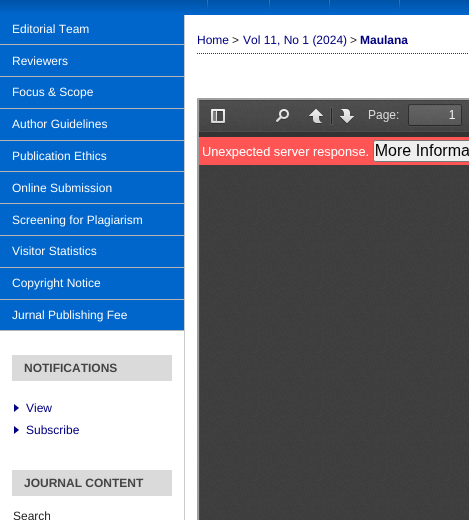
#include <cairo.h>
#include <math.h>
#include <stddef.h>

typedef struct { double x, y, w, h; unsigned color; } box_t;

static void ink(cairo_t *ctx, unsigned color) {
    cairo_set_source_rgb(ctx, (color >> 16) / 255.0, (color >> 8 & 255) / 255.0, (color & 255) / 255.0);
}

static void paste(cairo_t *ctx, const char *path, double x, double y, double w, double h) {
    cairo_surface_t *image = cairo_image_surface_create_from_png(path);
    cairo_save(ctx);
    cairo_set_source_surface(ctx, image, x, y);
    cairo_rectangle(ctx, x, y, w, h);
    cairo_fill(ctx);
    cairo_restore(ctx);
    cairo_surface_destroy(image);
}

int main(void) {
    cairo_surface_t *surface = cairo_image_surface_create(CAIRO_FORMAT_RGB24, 469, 520);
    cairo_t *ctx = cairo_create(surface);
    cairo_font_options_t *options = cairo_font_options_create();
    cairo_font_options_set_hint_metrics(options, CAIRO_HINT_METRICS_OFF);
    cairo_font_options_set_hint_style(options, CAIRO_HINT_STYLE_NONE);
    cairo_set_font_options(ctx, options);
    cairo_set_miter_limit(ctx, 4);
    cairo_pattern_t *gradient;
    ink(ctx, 0xFFFFFF);
    cairo_paint(ctx);
    {
        static const box_t items[] = {
            {184, 14, 1, 506, 0xCCCCCC},
            {0, 15, 184, 29, 0x0066CC},
            {0, 44, 184, 1, 0xB5B5B5},
        };
        for (size_t i = 0; i < sizeof items / sizeof *items; i++) {
            ink(ctx, items[i].color);
            cairo_rectangle(ctx, items[i].x, items[i].y, items[i].w, items[i].h);
            cairo_fill(ctx);
        }
    }
    cairo_select_font_face(ctx, "Liberation Sans", CAIRO_FONT_SLANT_NORMAL, CAIRO_FONT_WEIGHT_NORMAL);
    cairo_set_font_size(ctx, 12);
    ink(ctx, 0xFFFFFF);
    cairo_move_to(ctx, 12, 33);
    cairo_show_text(ctx, "Editorial Team");
    ink(ctx, 0x0066CC);
    cairo_rectangle(ctx, 0, 45, 184, 31);
    cairo_fill(ctx);
    ink(ctx, 0xB5B5B5);
    cairo_rectangle(ctx, 0, 76, 184, 1);
    cairo_fill(ctx);
    ink(ctx, 0xFFFFFF);
    cairo_move_to(ctx, 12, 65);
    cairo_show_text(ctx, "Reviewers");
    ink(ctx, 0x0066CC);
    cairo_rectangle(ctx, 0, 77, 184, 31);
    cairo_fill(ctx);
    ink(ctx, 0xB5B5B5);
    cairo_rectangle(ctx, 0, 108, 184, 1);
    cairo_fill(ctx);
    ink(ctx, 0xFFFFFF);
    cairo_move_to(ctx, 12, 96);
    cairo_show_text(ctx, "Focus & Scope");
    ink(ctx, 0x0066CC);
    cairo_rectangle(ctx, 0, 109, 184, 31);
    cairo_fill(ctx);
    ink(ctx, 0xB5B5B5);
    cairo_rectangle(ctx, 0, 140, 184, 1);
    cairo_fill(ctx);
    ink(ctx, 0xFFFFFF);
    cairo_move_to(ctx, 12, 128);
    cairo_show_text(ctx, "Author Guidelines");
    ink(ctx, 0x0066CC);
    cairo_rectangle(ctx, 0, 141, 184, 30);
    cairo_fill(ctx);
    ink(ctx, 0xB5B5B5);
    cairo_rectangle(ctx, 0, 171, 184, 1);
    cairo_fill(ctx);
    ink(ctx, 0xFFFFFF);
    cairo_move_to(ctx, 12, 160);
    cairo_show_text(ctx, "Publication Ethics");
    ink(ctx, 0x0066CC);
    cairo_rectangle(ctx, 0, 172, 184, 31);
    cairo_fill(ctx);
    ink(ctx, 0xB5B5B5);
    cairo_rectangle(ctx, 0, 203, 184, 1);
    cairo_fill(ctx);
    ink(ctx, 0xFFFFFF);
    cairo_move_to(ctx, 12, 192);
    cairo_show_text(ctx, "Online Submission");
    ink(ctx, 0x0066CC);
    cairo_rectangle(ctx, 0, 204, 184, 31);
    cairo_fill(ctx);
    ink(ctx, 0xB5B5B5);
    cairo_rectangle(ctx, 0, 235, 184, 1);
    cairo_fill(ctx);
    ink(ctx, 0xFFFFFF);
    cairo_move_to(ctx, 12, 224);
    cairo_show_text(ctx, "Screening for Plagiarism");
    ink(ctx, 0x0066CC);
    cairo_rectangle(ctx, 0, 236, 184, 31);
    cairo_fill(ctx);
    ink(ctx, 0xB5B5B5);
    cairo_rectangle(ctx, 0, 267, 184, 1);
    cairo_fill(ctx);
    ink(ctx, 0xFFFFFF);
    cairo_move_to(ctx, 12, 255);
    cairo_show_text(ctx, "Visitor Statistics");
    ink(ctx, 0x0066CC);
    cairo_rectangle(ctx, 0, 268, 184, 31);
    cairo_fill(ctx);
    ink(ctx, 0xB5B5B5);
    cairo_rectangle(ctx, 0, 299, 184, 1);
    cairo_fill(ctx);
    ink(ctx, 0xFFFFFF);
    cairo_move_to(ctx, 12, 287);
    cairo_show_text(ctx, "Copyright Notice");
    ink(ctx, 0x0066CC);
    cairo_rectangle(ctx, 0, 300, 184, 30);
    cairo_fill(ctx);
    ink(ctx, 0xB5B5B5);
    cairo_rectangle(ctx, 0, 330, 184, 1);
    cairo_fill(ctx);
    ink(ctx, 0xFFFFFF);
    cairo_move_to(ctx, 12, 319);
    cairo_show_text(ctx, "Jurnal Publishing Fee");
    ink(ctx, 0xDADADA);
    cairo_rectangle(ctx, 12, 355, 160, 26);
    cairo_fill(ctx);
    cairo_select_font_face(ctx, "Liberation Sans", CAIRO_FONT_SLANT_NORMAL, CAIRO_FONT_WEIGHT_BOLD);
    ink(ctx, 0x444444);
    cairo_move_to(ctx, 24, 372);
    cairo_show_text(ctx, "NOTIFICATIONS");
    ink(ctx, 0x000080);
    cairo_new_path(ctx);
    cairo_move_to(ctx, 14, 412);
    cairo_line_to(ctx, 14, 404);
    cairo_line_to(ctx, 19, 408);
    cairo_close_path(ctx);
    cairo_move_to(ctx, 14, 434);
    cairo_line_to(ctx, 14, 426);
    cairo_line_to(ctx, 19, 430);
    cairo_close_path(ctx);
    cairo_fill(ctx);
    cairo_select_font_face(ctx, "Liberation Sans", CAIRO_FONT_SLANT_NORMAL, CAIRO_FONT_WEIGHT_NORMAL);
    cairo_move_to(ctx, 26, 412);
    cairo_show_text(ctx, "View");
    cairo_move_to(ctx, 26, 434);
    cairo_show_text(ctx, "Subscribe");
    ink(ctx, 0xDADADA);
    cairo_rectangle(ctx, 12, 470, 160, 26);
    cairo_fill(ctx);
    cairo_select_font_face(ctx, "Liberation Sans", CAIRO_FONT_SLANT_NORMAL, CAIRO_FONT_WEIGHT_BOLD);
    ink(ctx, 0x444444);
    cairo_move_to(ctx, 24, 487);
    cairo_show_text(ctx, "JOURNAL CONTENT");
    cairo_select_font_face(ctx, "Liberation Sans", CAIRO_FONT_SLANT_NORMAL, CAIRO_FONT_WEIGHT_NORMAL);
    ink(ctx, 0x222222);
    cairo_move_to(ctx, 13, 520);
    cairo_show_text(ctx, "Search");
    gradient = cairo_pattern_create_linear(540, -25, 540, 15);
    cairo_pattern_add_color_stop_rgba(gradient, 0, 0, 0.2, 0.4, 1);
    cairo_pattern_add_color_stop_rgba(gradient, 1, 0, 0.4, 0.8, 1);
    cairo_set_source(ctx, gradient);
    cairo_pattern_destroy(gradient);
    cairo_rectangle(ctx, 0, 0, 469, 15);
    cairo_fill(ctx);
    gradient = cairo_pattern_create_linear(207, -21, 207, 9);
    cairo_pattern_add_color_stop_rgba(gradient, 0, 0, 0, 0, 0);
    cairo_pattern_add_color_stop_rgba(gradient, 0.5, 0, 0, 0, 0.15);
    cairo_pattern_add_color_stop_rgba(gradient, 1, 0, 0, 0, 0);
    cairo_set_source(ctx, gradient);
    cairo_pattern_destroy(gradient);
    cairo_rectangle(ctx, 206, 0, 1, 9);
    cairo_fill(ctx);
    gradient = cairo_pattern_create_linear(208, -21, 208, 9);
    cairo_pattern_add_color_stop_rgba(gradient, 0, 1, 1, 1, 0);
    cairo_pattern_add_color_stop_rgba(gradient, 0.5, 1, 1, 1, 0.35);
    cairo_pattern_add_color_stop_rgba(gradient, 1, 1, 1, 1, 0);
    cairo_set_source(ctx, gradient);
    cairo_pattern_destroy(gradient);
    cairo_rectangle(ctx, 207, 0, 1, 9);
    cairo_fill(ctx);
    gradient = cairo_pattern_create_linear(269, -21, 269, 9);
    cairo_pattern_add_color_stop_rgba(gradient, 0, 0, 0, 0, 0);
    cairo_pattern_add_color_stop_rgba(gradient, 0.5, 0, 0, 0, 0.15);
    cairo_pattern_add_color_stop_rgba(gradient, 1, 0, 0, 0, 0);
    cairo_set_source(ctx, gradient);
    cairo_pattern_destroy(gradient);
    cairo_rectangle(ctx, 268, 0, 1, 9);
    cairo_fill(ctx);
    gradient = cairo_pattern_create_linear(270, -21, 270, 9);
    cairo_pattern_add_color_stop_rgba(gradient, 0, 1, 1, 1, 0);
    cairo_pattern_add_color_stop_rgba(gradient, 0.5, 1, 1, 1, 0.35);
    cairo_pattern_add_color_stop_rgba(gradient, 1, 1, 1, 1, 0);
    cairo_set_source(ctx, gradient);
    cairo_pattern_destroy(gradient);
    cairo_rectangle(ctx, 269, 0, 1, 9);
    cairo_fill(ctx);
    gradient = cairo_pattern_create_linear(329, -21, 329, 9);
    cairo_pattern_add_color_stop_rgba(gradient, 0, 0, 0, 0, 0);
    cairo_pattern_add_color_stop_rgba(gradient, 0.5, 0, 0, 0, 0.15);
    cairo_pattern_add_color_stop_rgba(gradient, 1, 0, 0, 0, 0);
    cairo_set_source(ctx, gradient);
    cairo_pattern_destroy(gradient);
    cairo_rectangle(ctx, 328, 0, 1, 9);
    cairo_fill(ctx);
    gradient = cairo_pattern_create_linear(330, -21, 330, 9);
    cairo_pattern_add_color_stop_rgba(gradient, 0, 1, 1, 1, 0);
    cairo_pattern_add_color_stop_rgba(gradient, 0.5, 1, 1, 1, 0.35);
    cairo_pattern_add_color_stop_rgba(gradient, 1, 1, 1, 1, 0);
    cairo_set_source(ctx, gradient);
    cairo_pattern_destroy(gradient);
    cairo_rectangle(ctx, 329, 0, 1, 9);
    cairo_fill(ctx);
    gradient = cairo_pattern_create_linear(399, -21, 399, 9);
    cairo_pattern_add_color_stop_rgba(gradient, 0, 0, 0, 0, 0);
    cairo_pattern_add_color_stop_rgba(gradient, 0.5, 0, 0, 0, 0.15);
    cairo_pattern_add_color_stop_rgba(gradient, 1, 0, 0, 0, 0);
    cairo_set_source(ctx, gradient);
    cairo_pattern_destroy(gradient);
    cairo_rectangle(ctx, 398, 0, 1, 9);
    cairo_fill(ctx);
    gradient = cairo_pattern_create_linear(400, -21, 400, 9);
    cairo_pattern_add_color_stop_rgba(gradient, 0, 1, 1, 1, 0);
    cairo_pattern_add_color_stop_rgba(gradient, 0.5, 1, 1, 1, 0.35);
    cairo_pattern_add_color_stop_rgba(gradient, 1, 1, 1, 1, 0);
    cairo_set_source(ctx, gradient);
    cairo_pattern_destroy(gradient);
    cairo_rectangle(ctx, 399, 0, 1, 9);
    cairo_fill(ctx);
    cairo_new_path(ctx);
    cairo_move_to(ctx, 197, 53.5);
    cairo_line_to(ctx, 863, 53.5);
    ink(ctx, 0x333333);
    cairo_set_line_width(ctx, 1);
    cairo_set_dash(ctx, (double[]){1, 1}, 2, 0);
    cairo_stroke(ctx);
    ink(ctx, 0x000080);
    cairo_move_to(ctx, 197, 44);
    cairo_show_text(ctx, "Home");
    ink(ctx, 0x222222);
    cairo_move_to(ctx, 232, 44);
    cairo_show_text(ctx, ">");
    ink(ctx, 0x000080);
    cairo_move_to(ctx, 243, 44);
    cairo_show_text(ctx, "Vol 11, No 1 (2024)");
    ink(ctx, 0x222222);
    cairo_move_to(ctx, 350, 44);
    cairo_show_text(ctx, ">");
    cairo_select_font_face(ctx, "Liberation Sans", CAIRO_FONT_SLANT_NORMAL, CAIRO_FONT_WEIGHT_BOLD);
    ink(ctx, 0x000080);
    cairo_move_to(ctx, 360, 44);
    cairo_show_text(ctx, "Maulana");
    ink(ctx, 0x9F9F9F);
    cairo_new_path(ctx);
    cairo_move_to(ctx, 197, 98);
    cairo_line_to(ctx, 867, 98);
    cairo_line_to(ctx, 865, 100);
    cairo_line_to(ctx, 199, 100);
    cairo_close_path(ctx);
    cairo_fill(ctx);
    cairo_new_path(ctx);
    cairo_move_to(ctx, 197, 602);
    cairo_line_to(ctx, 197, 98);
    cairo_line_to(ctx, 199, 100);
    cairo_line_to(ctx, 199, 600);
    cairo_close_path(ctx);
    cairo_fill(ctx);
    paste(ctx, "media/1.png", 199, 100, 270, 420);
    cairo_surface_write_to_png(surface, "image.png");
    cairo_font_options_destroy(options);
    cairo_destroy(ctx);
    cairo_surface_destroy(surface);
    return 0;
}
